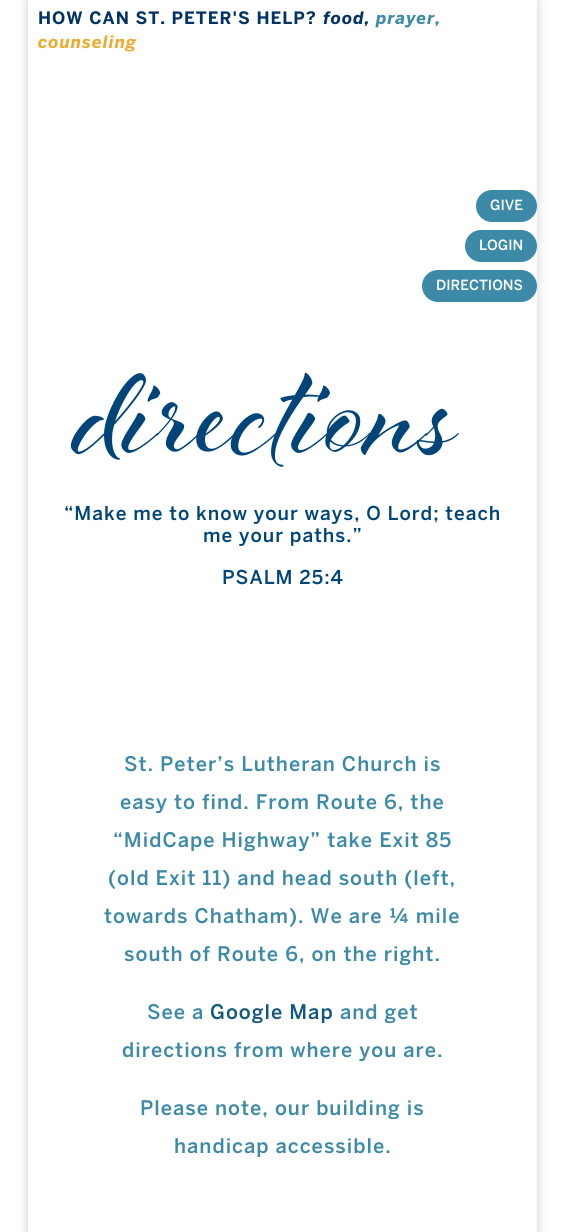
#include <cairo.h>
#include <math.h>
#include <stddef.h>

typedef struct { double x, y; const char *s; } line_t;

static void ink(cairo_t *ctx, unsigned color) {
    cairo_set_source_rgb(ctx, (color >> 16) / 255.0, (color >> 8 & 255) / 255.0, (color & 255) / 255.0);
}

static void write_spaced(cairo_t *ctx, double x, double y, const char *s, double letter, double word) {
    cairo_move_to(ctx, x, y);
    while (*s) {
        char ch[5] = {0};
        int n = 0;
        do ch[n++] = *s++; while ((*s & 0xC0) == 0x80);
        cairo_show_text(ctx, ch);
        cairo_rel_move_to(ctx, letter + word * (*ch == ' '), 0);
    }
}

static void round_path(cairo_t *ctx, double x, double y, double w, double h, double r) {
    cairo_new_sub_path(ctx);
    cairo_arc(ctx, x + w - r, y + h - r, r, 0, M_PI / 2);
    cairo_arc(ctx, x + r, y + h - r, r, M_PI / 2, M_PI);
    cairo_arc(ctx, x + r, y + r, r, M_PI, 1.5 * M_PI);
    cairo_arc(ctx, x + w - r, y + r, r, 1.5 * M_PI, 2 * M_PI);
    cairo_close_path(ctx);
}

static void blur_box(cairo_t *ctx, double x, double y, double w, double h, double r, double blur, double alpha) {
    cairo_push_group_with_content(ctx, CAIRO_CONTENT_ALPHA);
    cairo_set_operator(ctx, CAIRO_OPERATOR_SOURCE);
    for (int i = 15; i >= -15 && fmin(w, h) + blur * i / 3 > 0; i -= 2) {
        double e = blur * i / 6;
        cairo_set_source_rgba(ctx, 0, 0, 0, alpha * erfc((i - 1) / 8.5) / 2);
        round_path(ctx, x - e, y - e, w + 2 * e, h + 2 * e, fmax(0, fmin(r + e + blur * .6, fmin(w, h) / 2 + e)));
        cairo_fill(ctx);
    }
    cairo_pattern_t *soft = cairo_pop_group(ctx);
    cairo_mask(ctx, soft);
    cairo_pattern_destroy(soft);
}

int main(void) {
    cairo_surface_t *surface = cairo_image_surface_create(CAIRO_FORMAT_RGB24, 565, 1232);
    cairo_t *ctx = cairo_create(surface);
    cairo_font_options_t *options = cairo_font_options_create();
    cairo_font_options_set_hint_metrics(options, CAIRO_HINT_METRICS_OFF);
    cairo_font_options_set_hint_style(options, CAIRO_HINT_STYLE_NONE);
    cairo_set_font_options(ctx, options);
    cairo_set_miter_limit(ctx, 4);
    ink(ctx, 0xFFFFFF);
    cairo_paint(ctx);
    cairo_save(ctx);
    cairo_set_fill_rule(ctx, CAIRO_FILL_RULE_EVEN_ODD);
    cairo_new_path(ctx);
    cairo_move_to(ctx, 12, 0);
    cairo_line_to(ctx, 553, 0);
    cairo_line_to(ctx, 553, 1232);
    cairo_line_to(ctx, 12, 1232);
    cairo_close_path(ctx);
    cairo_move_to(ctx, 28, 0);
    cairo_line_to(ctx, 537, 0);
    cairo_line_to(ctx, 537, 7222);
    cairo_line_to(ctx, 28, 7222);
    cairo_close_path(ctx);
    cairo_clip(ctx);
    ink(ctx, 0x000000);
    blur_box(ctx, 28, 0, 509, 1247, 0, 5, 0.2);
    cairo_restore(ctx);
    cairo_select_font_face(ctx, "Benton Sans", CAIRO_FONT_SLANT_NORMAL, CAIRO_FONT_WEIGHT_BOLD);
    cairo_set_font_size(ctx, 17);
    ink(ctx, 0x013365);
    write_spaced(ctx, 38, 24, "HOW CAN ST. PETER'S HELP?", 1, 0);
    cairo_select_font_face(ctx, "Benton Sans", CAIRO_FONT_SLANT_ITALIC, CAIRO_FONT_WEIGHT_BOLD);
    write_spaced(ctx, 323, 24, "food,", 1, 0);
    ink(ctx, 0x3C8AA7);
    write_spaced(ctx, 376, 24, "prayer,", 1, 0);
    ink(ctx, 0xEDAB2F);
    write_spaced(ctx, 38, 48, "counseling", 1, 0);
    ink(ctx, 0x3C8AA7);
    round_path(ctx, 476, 190, 61, 32, 16);
    cairo_fill(ctx);
    cairo_select_font_face(ctx, "Benton Sans Medium", CAIRO_FONT_SLANT_NORMAL, CAIRO_FONT_WEIGHT_NORMAL);
    cairo_set_font_size(ctx, 14);
    ink(ctx, 0xFFFFFF);
    cairo_move_to(ctx, 490, 210);
    cairo_show_text(ctx, "GIVE");
    ink(ctx, 0x3C8AA7);
    round_path(ctx, 465, 230, 72, 32, 16);
    cairo_fill(ctx);
    ink(ctx, 0xFFFFFF);
    cairo_move_to(ctx, 479, 250);
    cairo_show_text(ctx, "LOGIN");
    ink(ctx, 0x3C8AA7);
    round_path(ctx, 422, 270, 115, 32, 16);
    cairo_fill(ctx);
    ink(ctx, 0xFFFFFF);
    cairo_move_to(ctx, 436, 290);
    cairo_show_text(ctx, "DIRECTIONS");
    cairo_select_font_face(ctx, "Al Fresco", CAIRO_FONT_SLANT_NORMAL, CAIRO_FONT_WEIGHT_NORMAL);
    cairo_set_font_size(ctx, 150);
    ink(ctx, 0x00457A);
    write_spaced(ctx, 77, 451, "directions", 1, 0);
    cairo_select_font_face(ctx, "Benton Sans Medium", CAIRO_FONT_SLANT_NORMAL, CAIRO_FONT_WEIGHT_NORMAL);
    cairo_set_font_size(ctx, 19);
    {
        static const line_t items[] = {
            {64, 520, "“Make me to know your ways, O Lord; teach"},
            {203, 542, "me your paths.”"},
            {222, 584, "PSALM 25:4"},
        };
        for (size_t i = 0; i < sizeof items / sizeof *items; i++) {
            write_spaced(ctx, items[i].x, items[i].y, items[i].s, 1, 0);
        }
    }
    cairo_set_font_size(ctx, 20);
    ink(ctx, 0x3C8AA7);
    {
        static const line_t items[] = {
            {124, 771, "St. Peter’s Lutheran Church is"},
            {120, 809, "easy to find. From Route 6, the"},
            {113, 847, "“MidCape Highway” take Exit 85"},
            {108, 885, "(old Exit 11) and head south (left,"},
            {104, 923, "towards Chatham). We are ¼ mile"},
            {124, 961, "south of Route 6, on the right."},
            {147, 1019, "See a"},
        };
        for (size_t i = 0; i < sizeof items / sizeof *items; i++) {
            write_spaced(ctx, items[i].x, items[i].y, items[i].s, 1, 0);
        }
    }
    ink(ctx, 0x12587E);
    write_spaced(ctx, 210, 1019, "Google Map", 1, 0);
    ink(ctx, 0x3C8AA7);
    {
        static const line_t items[] = {
            {340, 1019, "and get"},
            {122, 1057, "directions from where you are."},
            {140, 1115, "Please note, our building is"},
            {174, 1153, "handicap accessible."},
        };
        for (size_t i = 0; i < sizeof items / sizeof *items; i++) {
            write_spaced(ctx, items[i].x, items[i].y, items[i].s, 1, 0);
        }
    }
    cairo_surface_write_to_png(surface, "image.png");
    cairo_font_options_destroy(options);
    cairo_destroy(ctx);
    cairo_surface_destroy(surface);
    return 0;
}
